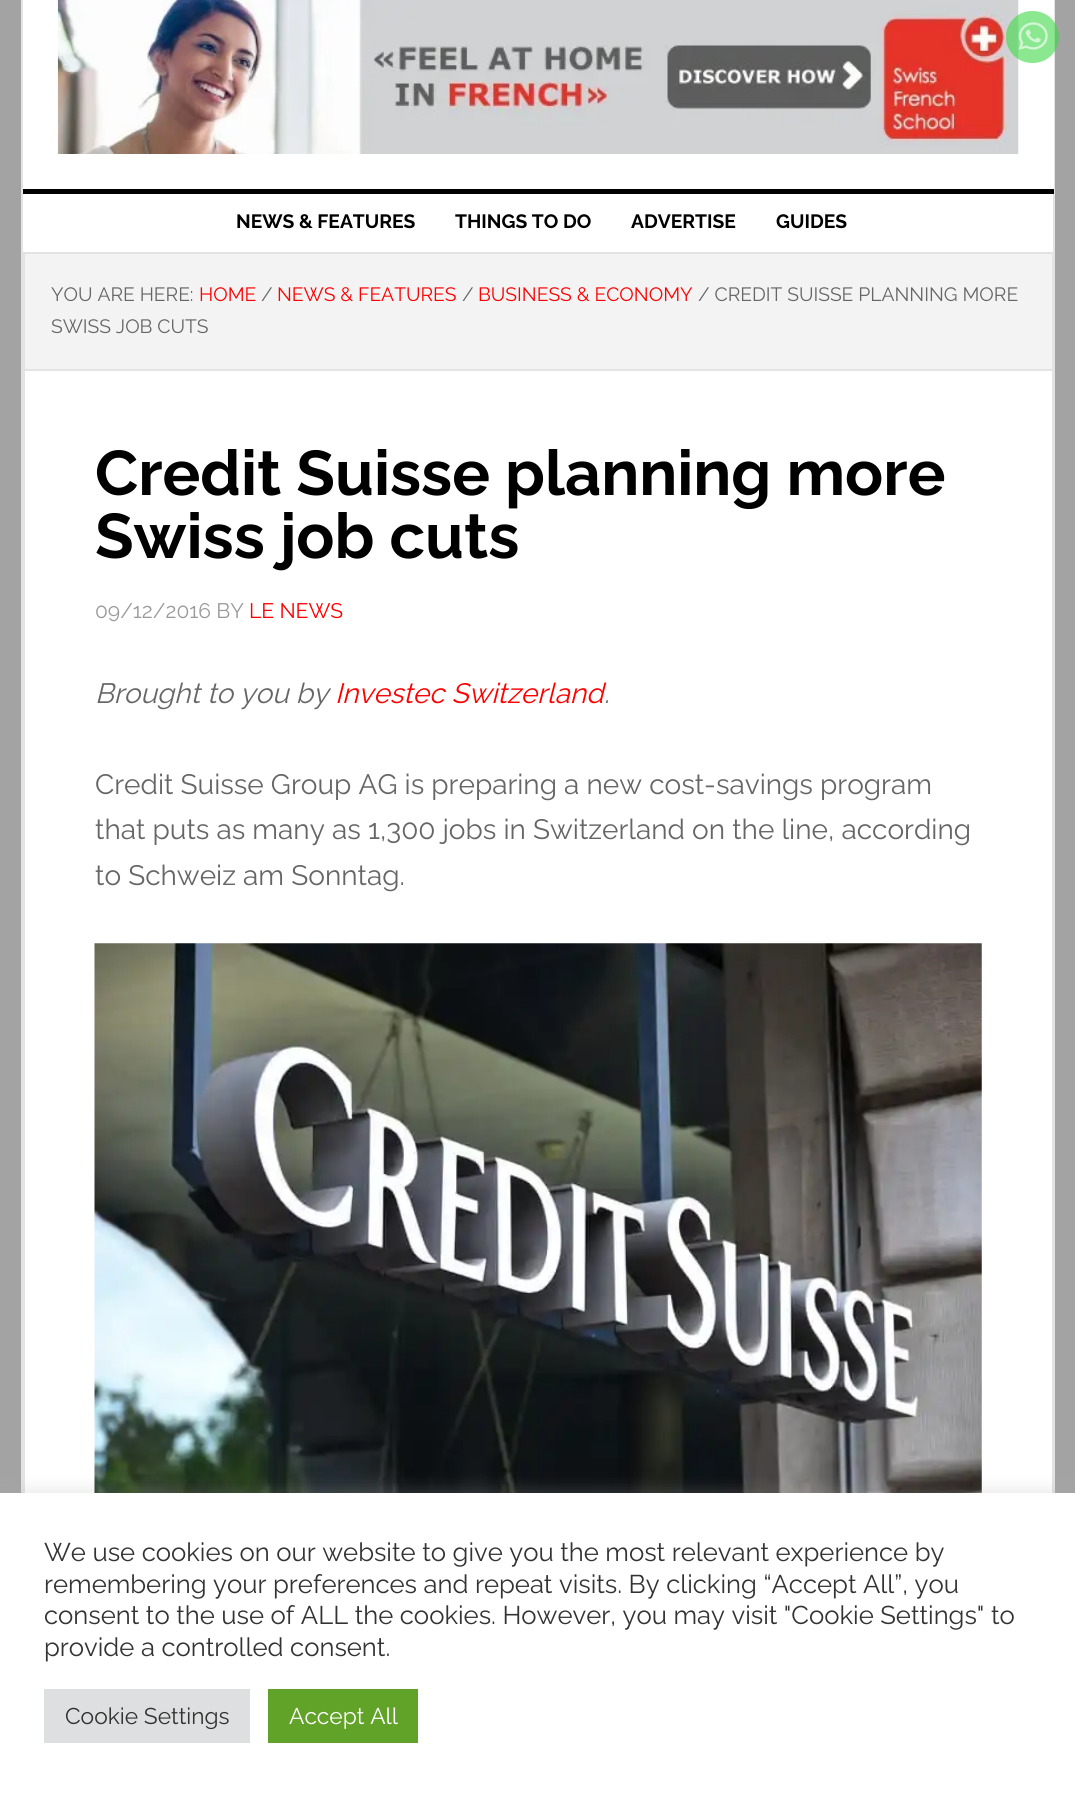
#include <cairo.h>
#include <math.h>
#include <stddef.h>

typedef struct { double x, y; const char *s; } line_t;
typedef struct { double x, y, w, h; unsigned color; } box_t;

static void ink(cairo_t *ctx, unsigned color) {
    cairo_set_source_rgb(ctx, (color >> 16) / 255.0, (color >> 8 & 255) / 255.0, (color & 255) / 255.0);
}

static void round_path(cairo_t *ctx, double x, double y, double w, double h, double r) {
    cairo_new_sub_path(ctx);
    cairo_arc(ctx, x + w - r, y + h - r, r, 0, M_PI / 2);
    cairo_arc(ctx, x + r, y + h - r, r, M_PI / 2, M_PI);
    cairo_arc(ctx, x + r, y + r, r, M_PI, 1.5 * M_PI);
    cairo_arc(ctx, x + w - r, y + r, r, 1.5 * M_PI, 2 * M_PI);
    cairo_close_path(ctx);
}

static void blur_box(cairo_t *ctx, double x, double y, double w, double h, double r, double blur, double alpha) {
    cairo_push_group_with_content(ctx, CAIRO_CONTENT_ALPHA);
    cairo_set_operator(ctx, CAIRO_OPERATOR_SOURCE);
    for (int i = 15; i >= -15 && fmin(w, h) + blur * i / 3 > 0; i -= 2) {
        double e = blur * i / 6;
        cairo_set_source_rgba(ctx, 0, 0, 0, alpha * erfc((i - 1) / 8.5) / 2);
        round_path(ctx, x - e, y - e, w + 2 * e, h + 2 * e, fmax(0, fmin(r + e + blur * .6, fmin(w, h) / 2 + e)));
        cairo_fill(ctx);
    }
    cairo_pattern_t *soft = cairo_pop_group(ctx);
    cairo_mask(ctx, soft);
    cairo_pattern_destroy(soft);
}

static void paste(cairo_t *ctx, const char *path, double x, double y, double w, double h) {
    cairo_surface_t *image = cairo_image_surface_create_from_png(path);
    cairo_save(ctx);
    cairo_set_source_surface(ctx, image, x, y);
    cairo_rectangle(ctx, x, y, w, h);
    cairo_fill(ctx);
    cairo_restore(ctx);
    cairo_surface_destroy(image);
}

int main(void) {
    cairo_surface_t *surface = cairo_image_surface_create(CAIRO_FORMAT_RGB24, 1075, 1795);
    cairo_t *ctx = cairo_create(surface);
    cairo_font_options_t *options = cairo_font_options_create();
    cairo_font_options_set_hint_metrics(options, CAIRO_HINT_METRICS_OFF);
    cairo_font_options_set_hint_style(options, CAIRO_HINT_STYLE_NONE);
    cairo_set_font_options(ctx, options);
    cairo_set_miter_limit(ctx, 4);
    ink(ctx, 0xA3A3A3);
    cairo_paint(ctx);
    ink(ctx, 0xFFFFFF);
    cairo_rectangle(ctx, 23, 194, 1030, 1299);
    cairo_fill(ctx);
    cairo_rectangle(ctx, 22, -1, 1032, 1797);
    ink(ctx, 0xE3E3E3);
    cairo_stroke(ctx);
    ink(ctx, 0xFFFFFF);
    cairo_rectangle(ctx, 23, 0, 1031, 189);
    cairo_fill(ctx);
    paste(ctx, "media/2.png", 57, 0, 962, 154);
    cairo_set_source_rgba(ctx, 0.243, 0.851, 0.275, 0.6);
    round_path(ctx, 1006, 11, 53, 52, 26);
    cairo_fill(ctx);
    paste(ctx, "media/1.png", 1018, 22, 30, 28);
    ink(ctx, 0x000000);
    cairo_rectangle(ctx, 23, 189, 1031, 5);
    cairo_fill(ctx);
    ink(ctx, 0xE3E3E3);
    cairo_rectangle(ctx, 23, 252, 1031, 2);
    cairo_fill(ctx);
    cairo_select_font_face(ctx, "Raleway", CAIRO_FONT_SLANT_NORMAL, CAIRO_FONT_WEIGHT_BOLD);
    cairo_set_font_size(ctx, 19.25);
    ink(ctx, 0x000000);
    {
        static const line_t items[] = {
            {236, 228, "NEWS & FEATURES"},
            {455, 228, "THINGS TO DO"},
            {631, 228, "ADVERTISE"},
            {776, 228, "GUIDES"},
        };
        for (size_t i = 0; i < sizeof items / sizeof *items; i++) {
            cairo_move_to(ctx, items[i].x, items[i].y);
            cairo_show_text(ctx, items[i].s);
        }
    }
    {
        static const box_t items[] = {
            {1052, 254, 1, 1239, 0xE3E3E3},
            {23, 254, 2, 1239, 0xE3E3E3},
            {25, 254, 1027, 115, 0xF3F3F3},
            {25, 369, 1027, 2, 0xE3E3E3},
        };
        for (size_t i = 0; i < sizeof items / sizeof *items; i++) {
            ink(ctx, items[i].color);
            cairo_rectangle(ctx, items[i].x, items[i].y, items[i].w, items[i].h);
            cairo_fill(ctx);
        }
    }
    cairo_select_font_face(ctx, "Raleway", CAIRO_FONT_SLANT_NORMAL, CAIRO_FONT_WEIGHT_NORMAL);
    ink(ctx, 0x666666);
    cairo_move_to(ctx, 51, 301);
    cairo_show_text(ctx, "YOU ARE HERE:");
    ink(ctx, 0xFF0000);
    cairo_move_to(ctx, 199, 301);
    cairo_show_text(ctx, "HOME");
    ink(ctx, 0x666666);
    cairo_move_to(ctx, 261, 301);
    cairo_show_text(ctx, "/");
    ink(ctx, 0xFF0000);
    cairo_move_to(ctx, 277, 301);
    cairo_show_text(ctx, "NEWS & FEATURES");
    ink(ctx, 0x666666);
    cairo_move_to(ctx, 462, 301);
    cairo_show_text(ctx, "/");
    ink(ctx, 0xFF0000);
    cairo_move_to(ctx, 478, 301);
    cairo_show_text(ctx, "BUSINESS & ECONOMY");
    ink(ctx, 0x666666);
    cairo_move_to(ctx, 698, 301);
    cairo_show_text(ctx, "/ CREDIT SUISSE PLANNING MORE");
    cairo_move_to(ctx, 51, 333);
    cairo_show_text(ctx, "SWISS JOB CUTS");
    cairo_select_font_face(ctx, "Raleway", CAIRO_FONT_SLANT_NORMAL, CAIRO_FONT_WEIGHT_BOLD);
    cairo_set_font_size(ctx, 63);
    ink(ctx, 0x000000);
    cairo_move_to(ctx, 95, 495);
    cairo_show_text(ctx, "Credit Suisse planning more");
    cairo_move_to(ctx, 95, 558);
    cairo_show_text(ctx, "Swiss job cuts");
    cairo_select_font_face(ctx, "Raleway", CAIRO_FONT_SLANT_NORMAL, CAIRO_FONT_WEIGHT_NORMAL);
    cairo_set_font_size(ctx, 21);
    ink(ctx, 0x999999);
    cairo_move_to(ctx, 95, 618);
    cairo_show_text(ctx, "09/12/2016 BY");
    ink(ctx, 0xFF0000);
    cairo_move_to(ctx, 249, 618);
    cairo_show_text(ctx, "LE NEWS");
    cairo_select_font_face(ctx, "Raleway", CAIRO_FONT_SLANT_ITALIC, CAIRO_FONT_WEIGHT_NORMAL);
    cairo_set_font_size(ctx, 28);
    ink(ctx, 0x666666);
    cairo_move_to(ctx, 95, 703);
    cairo_show_text(ctx, "Brought to you by");
    ink(ctx, 0xFF0000);
    cairo_move_to(ctx, 335, 703);
    cairo_show_text(ctx, "Investec Switzerland");
    ink(ctx, 0x666666);
    cairo_move_to(ctx, 604, 703);
    cairo_show_text(ctx, ".");
    cairo_select_font_face(ctx, "Raleway", CAIRO_FONT_SLANT_NORMAL, CAIRO_FONT_WEIGHT_NORMAL);
    {
        static const line_t items[] = {
            {95, 794, "Credit Suisse Group AG is preparing a new cost-savings program"},
            {95, 839, "that puts as many as 1,300 jobs in Switzerland on the line, according"},
            {95, 885, "to Schweiz am Sonntag."},
        };
        for (size_t i = 0; i < sizeof items / sizeof *items; i++) {
            cairo_move_to(ctx, items[i].x, items[i].y);
            cairo_show_text(ctx, items[i].s);
        }
    }
    paste(ctx, "media/3.png", 94, 943, 888, 550);
    ink(ctx, 0xACABAB);
    blur_box(ctx, 0, 1491, 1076, 303, 0, 9, 0.3);
    ink(ctx, 0xFFFFFF);
    cairo_rectangle(ctx, 0, 1493, 1075, 302);
    cairo_fill(ctx);
    cairo_set_font_size(ctx, 25.65);
    ink(ctx, 0x333333);
    {
        static const line_t items[] = {
            {44, 1561, "We use cookies on our website to give you the most relevant experience by"},
            {44, 1593, "remembering your preferences and repeat visits. By clicking “Accept All”, you"},
            {44, 1624, "consent to the use of ALL the cookies. However, you may visit \"Cookie Settings\" to"},
            {44, 1656, "provide a controlled consent."},
        };
        for (size_t i = 0; i < sizeof items / sizeof *items; i++) {
            cairo_move_to(ctx, items[i].x, items[i].y);
            cairo_show_text(ctx, items[i].s);
        }
    }
    ink(ctx, 0xDEDFE0);
    cairo_rectangle(ctx, 44, 1689, 206, 54);
    cairo_fill(ctx);
    cairo_set_font_size(ctx, 22.75);
    ink(ctx, 0x333333);
    cairo_move_to(ctx, 65, 1724);
    cairo_show_text(ctx, "Cookie Settings");
    ink(ctx, 0x61A229);
    cairo_rectangle(ctx, 268, 1689, 150, 54);
    cairo_fill(ctx);
    ink(ctx, 0xFFFFFF);
    cairo_move_to(ctx, 289, 1724);
    cairo_show_text(ctx, "Accept All");
    cairo_surface_write_to_png(surface, "image.png");
    cairo_font_options_destroy(options);
    cairo_destroy(ctx);
    cairo_surface_destroy(surface);
    return 0;
}
